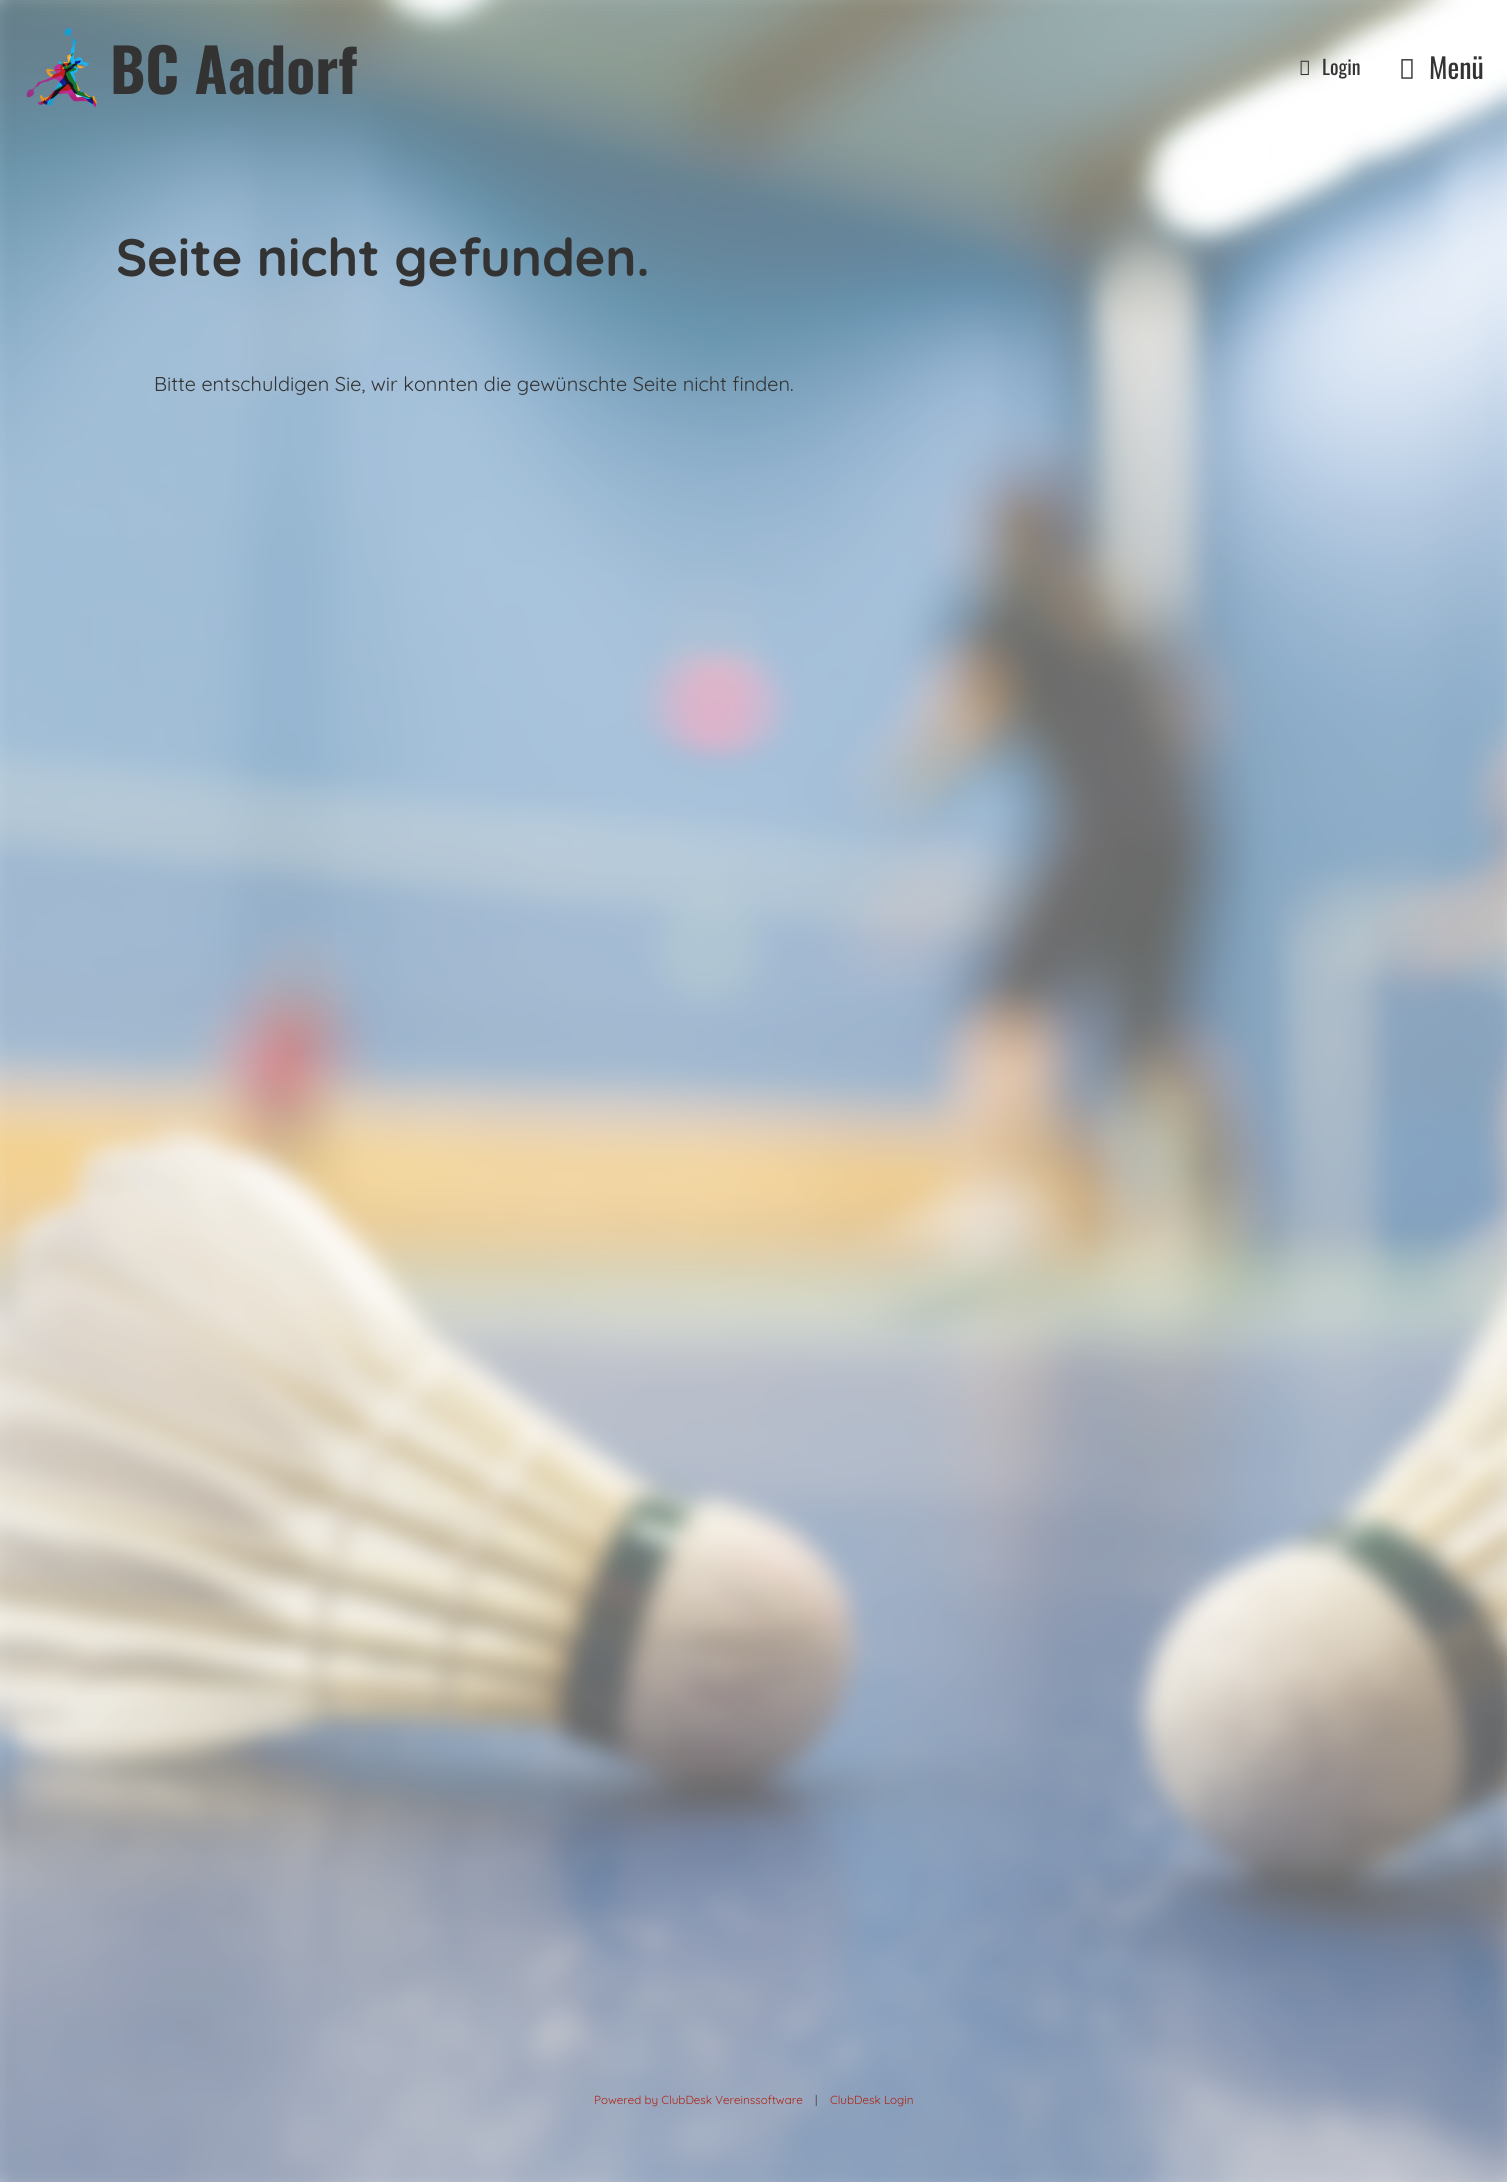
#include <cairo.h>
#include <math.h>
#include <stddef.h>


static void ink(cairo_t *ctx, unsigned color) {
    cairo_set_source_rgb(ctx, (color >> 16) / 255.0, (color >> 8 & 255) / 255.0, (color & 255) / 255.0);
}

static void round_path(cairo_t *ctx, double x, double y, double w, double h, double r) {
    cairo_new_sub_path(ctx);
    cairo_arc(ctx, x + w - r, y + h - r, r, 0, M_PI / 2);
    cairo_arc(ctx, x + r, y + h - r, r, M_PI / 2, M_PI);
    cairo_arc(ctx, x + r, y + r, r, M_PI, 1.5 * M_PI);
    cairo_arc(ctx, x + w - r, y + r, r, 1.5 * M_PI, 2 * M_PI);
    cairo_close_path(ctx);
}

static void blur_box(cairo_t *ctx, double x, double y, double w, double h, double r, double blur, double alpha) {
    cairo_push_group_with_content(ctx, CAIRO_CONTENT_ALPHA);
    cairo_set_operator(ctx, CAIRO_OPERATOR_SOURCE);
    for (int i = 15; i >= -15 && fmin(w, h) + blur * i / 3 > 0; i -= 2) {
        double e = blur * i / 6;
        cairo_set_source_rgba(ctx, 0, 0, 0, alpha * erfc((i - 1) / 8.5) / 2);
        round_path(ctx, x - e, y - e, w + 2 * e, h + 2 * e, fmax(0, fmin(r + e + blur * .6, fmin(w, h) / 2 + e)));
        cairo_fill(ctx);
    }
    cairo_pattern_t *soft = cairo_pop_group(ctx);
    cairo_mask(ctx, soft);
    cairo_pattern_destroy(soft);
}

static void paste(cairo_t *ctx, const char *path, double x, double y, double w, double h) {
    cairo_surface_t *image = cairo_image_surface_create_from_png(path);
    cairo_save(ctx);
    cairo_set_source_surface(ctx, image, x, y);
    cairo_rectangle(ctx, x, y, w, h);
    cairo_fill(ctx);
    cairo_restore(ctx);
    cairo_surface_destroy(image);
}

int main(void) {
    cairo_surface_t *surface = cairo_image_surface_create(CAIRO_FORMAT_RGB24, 1507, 2182);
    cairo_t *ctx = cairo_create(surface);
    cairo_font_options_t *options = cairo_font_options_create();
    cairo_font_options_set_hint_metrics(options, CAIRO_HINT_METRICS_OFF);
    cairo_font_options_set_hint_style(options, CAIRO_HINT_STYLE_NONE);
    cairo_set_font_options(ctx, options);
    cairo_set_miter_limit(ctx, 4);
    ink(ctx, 0xFFFFFF);
    cairo_paint(ctx);
    paste(ctx, "media/1.png", 0, 0, 1507, 2182);
    blur_box(ctx, -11, -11, 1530, 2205, 0, 11, 0.4);
    paste(ctx, "media/2.png", 26, 28, 71, 79);
    cairo_select_font_face(ctx, "Oswald", CAIRO_FONT_SLANT_NORMAL, CAIRO_FONT_WEIGHT_BOLD);
    cairo_set_font_size(ctx, 60);
    ink(ctx, 0x333333);
    cairo_move_to(ctx, 110, 94);
    cairo_show_text(ctx, "BC Aadorf");
    paste(ctx, "media/3.png", 1300, 60, 9, 15);
    cairo_select_font_face(ctx, "Oswald", CAIRO_FONT_SLANT_NORMAL, CAIRO_FONT_WEIGHT_NORMAL);
    cairo_set_font_size(ctx, 20);
    cairo_move_to(ctx, 1322, 75);
    cairo_show_text(ctx, "Login");
    paste(ctx, "media/4.png", 1401, 59, 12, 20);
    cairo_set_font_size(ctx, 28);
    cairo_move_to(ctx, 1429, 79);
    cairo_show_text(ctx, "Menü");
    cairo_select_font_face(ctx, "Quicksand Light", CAIRO_FONT_SLANT_NORMAL, CAIRO_FONT_WEIGHT_NORMAL);
    cairo_set_font_size(ctx, 52.5);
    cairo_move_to(ctx, 116, 276);
    cairo_show_text(ctx, "Seite nicht gefunden.");
    cairo_select_font_face(ctx, "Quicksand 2 Light", CAIRO_FONT_SLANT_NORMAL, CAIRO_FONT_WEIGHT_NORMAL);
    cairo_set_font_size(ctx, 20);
    cairo_move_to(ctx, 154, 391);
    cairo_show_text(ctx, "Bitte entschuldigen Sie, wir konnten die gewünschte Seite nicht finden.");
    cairo_set_font_size(ctx, 11.7);
    ink(ctx, 0xAF2315);
    cairo_move_to(ctx, 594, 2104);
    cairo_show_text(ctx, "Powered by ClubDesk Vereinssoftware");
    ink(ctx, 0x333333);
    cairo_move_to(ctx, 815, 2104);
    cairo_show_text(ctx, "|");
    ink(ctx, 0xAF2315);
    cairo_move_to(ctx, 830, 2104);
    cairo_show_text(ctx, "ClubDesk Login");
    cairo_surface_write_to_png(surface, "image.png");
    cairo_font_options_destroy(options);
    cairo_destroy(ctx);
    cairo_surface_destroy(surface);
    return 0;
}
